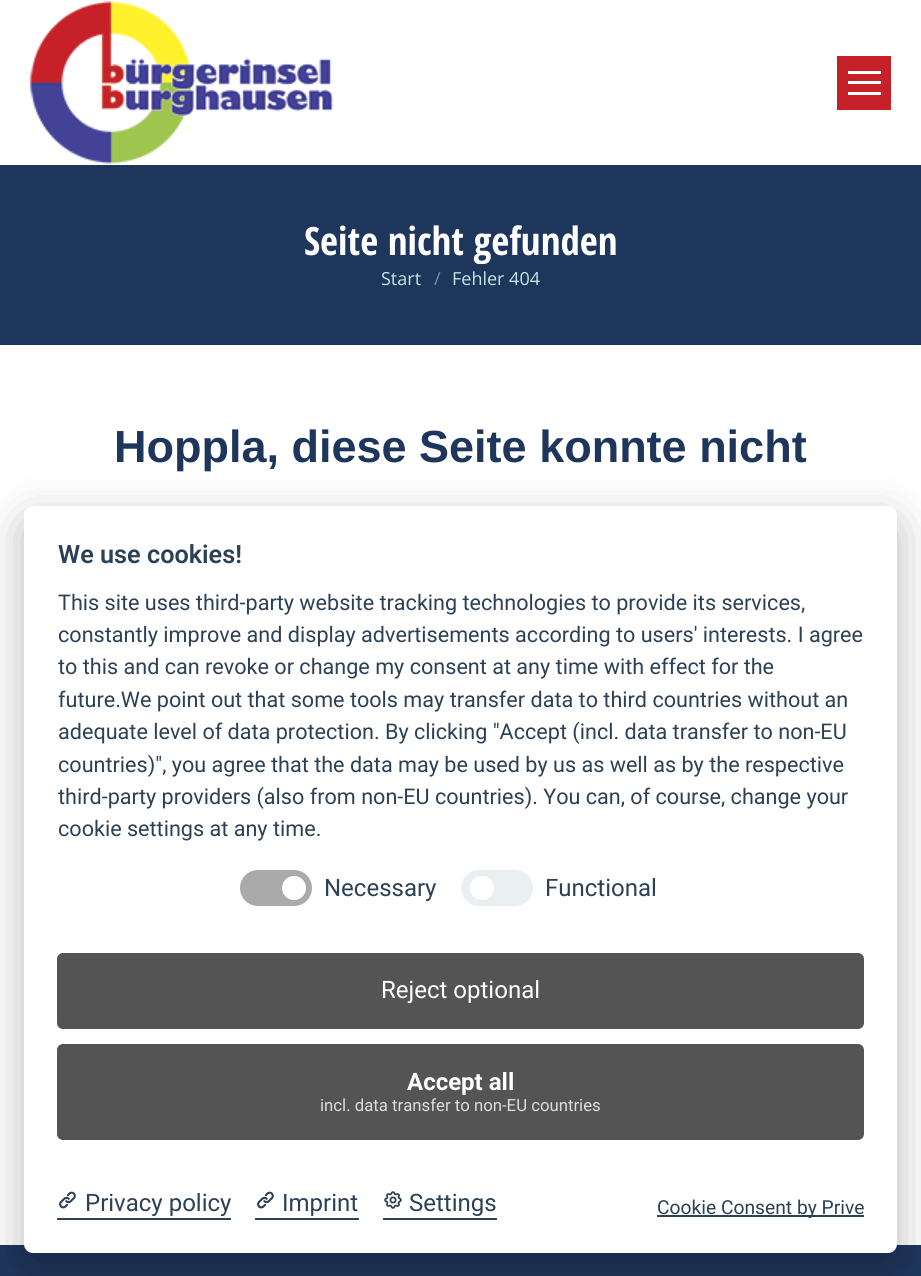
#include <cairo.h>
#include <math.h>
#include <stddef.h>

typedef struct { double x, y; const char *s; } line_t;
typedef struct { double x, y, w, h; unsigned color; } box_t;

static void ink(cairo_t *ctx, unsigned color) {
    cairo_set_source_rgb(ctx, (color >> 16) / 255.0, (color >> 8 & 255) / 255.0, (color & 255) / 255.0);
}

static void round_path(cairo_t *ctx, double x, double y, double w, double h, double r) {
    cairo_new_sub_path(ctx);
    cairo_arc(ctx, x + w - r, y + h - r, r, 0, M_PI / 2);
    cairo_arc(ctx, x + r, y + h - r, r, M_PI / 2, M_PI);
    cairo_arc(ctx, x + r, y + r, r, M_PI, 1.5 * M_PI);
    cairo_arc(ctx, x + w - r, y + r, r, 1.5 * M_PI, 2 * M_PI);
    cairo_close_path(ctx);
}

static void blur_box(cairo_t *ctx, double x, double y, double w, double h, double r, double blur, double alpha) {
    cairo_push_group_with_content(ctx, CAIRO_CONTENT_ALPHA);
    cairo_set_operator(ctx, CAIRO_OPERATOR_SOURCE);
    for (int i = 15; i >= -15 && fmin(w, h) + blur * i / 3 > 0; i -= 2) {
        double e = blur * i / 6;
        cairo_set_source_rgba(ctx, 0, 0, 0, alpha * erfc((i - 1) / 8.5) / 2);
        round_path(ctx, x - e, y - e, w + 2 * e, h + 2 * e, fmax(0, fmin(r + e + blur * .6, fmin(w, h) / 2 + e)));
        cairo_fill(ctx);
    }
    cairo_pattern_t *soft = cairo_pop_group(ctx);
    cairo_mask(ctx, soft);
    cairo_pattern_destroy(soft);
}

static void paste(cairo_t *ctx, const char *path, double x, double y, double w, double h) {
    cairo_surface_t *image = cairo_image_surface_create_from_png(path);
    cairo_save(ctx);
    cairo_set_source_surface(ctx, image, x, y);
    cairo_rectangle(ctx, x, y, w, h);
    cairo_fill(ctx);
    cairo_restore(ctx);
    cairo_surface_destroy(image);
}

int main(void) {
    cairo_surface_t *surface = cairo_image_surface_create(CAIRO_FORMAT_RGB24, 921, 1276);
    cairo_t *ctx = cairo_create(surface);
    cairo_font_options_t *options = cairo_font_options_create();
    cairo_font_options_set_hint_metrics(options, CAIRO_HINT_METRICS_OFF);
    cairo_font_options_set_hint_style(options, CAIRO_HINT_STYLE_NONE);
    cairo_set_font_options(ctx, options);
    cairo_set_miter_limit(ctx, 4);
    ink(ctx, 0xFFFFFF);
    cairo_paint(ctx);
    paste(ctx, "media/1.png", 30, 1, 304, 163);
    {
        static const box_t items[] = {
            {837, 56, 54, 54, 0xC62128},
            {848, 71, 33, 3, 0xFFFFFF},
            {848, 81, 33, 3, 0xFFFFFF},
            {848, 92, 33, 3, 0xFFFFFF},
            {0, 165, 921, 180, 0x1F365C},
        };
        for (size_t i = 0; i < sizeof items / sizeof *items; i++) {
            ink(ctx, items[i].color);
            cairo_rectangle(ctx, items[i].x, items[i].y, items[i].w, items[i].h);
            cairo_fill(ctx);
        }
    }
    cairo_save(ctx);
    cairo_rectangle(ctx, 305, 216, 312, 48);
    cairo_clip(ctx);
    cairo_select_font_face(ctx, "Open Sans Condensed", CAIRO_FONT_SLANT_NORMAL, CAIRO_FONT_WEIGHT_BOLD);
    cairo_set_font_size(ctx, 39);
    ink(ctx, 0xFFFFFF);
    cairo_move_to(ctx, 304, 255);
    cairo_show_text(ctx, "Seite nicht gefunden");
    cairo_restore(ctx);
    cairo_select_font_face(ctx, "Open Sans", CAIRO_FONT_SLANT_NORMAL, CAIRO_FONT_WEIGHT_NORMAL);
    cairo_set_font_size(ctx, 18);
    ink(ctx, 0xC0E8E6);
    cairo_move_to(ctx, 381, 285);
    cairo_show_text(ctx, "Start");
    ink(ctx, 0x708FA1);
    cairo_move_to(ctx, 434, 285);
    cairo_show_text(ctx, "/");
    ink(ctx, 0xC0E8E6);
    cairo_move_to(ctx, 452, 285);
    cairo_show_text(ctx, "Fehler 404");
    cairo_select_font_face(ctx, "Liberation Sans", CAIRO_FONT_SLANT_NORMAL, CAIRO_FONT_WEIGHT_BOLD);
    cairo_set_font_size(ctx, 45);
    ink(ctx, 0x1F365C);
    cairo_move_to(ctx, 114, 462);
    cairo_show_text(ctx, "Hoppla, diese Seite konnte nicht");
    cairo_rectangle(ctx, 0, 1245, 921, 31);
    cairo_fill(ctx);
    ink(ctx, 0x020203);
    blur_box(ctx, 24, 521, 873, 747, 9, 22.5, 0.28);
    ink(ctx, 0xFFFFFF);
    round_path(ctx, 24, 506, 873, 747, 9);
    cairo_fill(ctx);
    cairo_select_font_face(ctx, "Roboto SemiBold", CAIRO_FONT_SLANT_NORMAL, CAIRO_FONT_WEIGHT_NORMAL);
    cairo_set_font_size(ctx, 25.25);
    ink(ctx, 0x2D4156);
    cairo_move_to(ctx, 58, 563);
    cairo_show_text(ctx, "We use cookies!");
    cairo_select_font_face(ctx, "Roboto", CAIRO_FONT_SLANT_NORMAL, CAIRO_FONT_WEIGHT_NORMAL);
    cairo_set_font_size(ctx, 21.6);
    {
        static const line_t items[] = {
            {58, 610, "This site uses third-party website tracking technologies to provide its services,"},
            {58, 642, "constantly improve and display advertisements according to users' interests. I agree"},
            {58, 674, "to this and can revoke or change my consent at any time with effect for the"},
            {58, 707, "future.We point out that some tools may transfer data to third countries without an"},
            {58, 739, "adequate level of data protection. By clicking \"Accept (incl. data transfer to non-EU"},
            {58, 772, "countries)\", you agree that the data may be used by us as well as by the respective"},
            {58, 804, "third-party providers (also from non-EU countries). You can, of course, change your"},
            {58, 836, "cookie settings at any time."},
        };
        for (size_t i = 0; i < sizeof items / sizeof *items; i++) {
            cairo_move_to(ctx, items[i].x, items[i].y);
            cairo_show_text(ctx, items[i].s);
        }
    }
    ink(ctx, 0xAAAAAA);
    round_path(ctx, 240, 870, 72, 36, 18);
    cairo_fill(ctx);
    ink(ctx, 0xFFFFFF);
    cairo_arc(ctx, 294, 888, 12, 0, 2 * M_PI);
    cairo_fill(ctx);
    cairo_set_font_size(ctx, 24);
    ink(ctx, 0x2D4156);
    cairo_move_to(ctx, 324, 896);
    cairo_show_text(ctx, "Necessary");
    ink(ctx, 0xEAEFF2);
    round_path(ctx, 461, 870, 72, 36, 18);
    cairo_fill(ctx);
    ink(ctx, 0xFFFFFF);
    cairo_arc(ctx, 482, 888, 12, 0, 2 * M_PI);
    cairo_fill(ctx);
    ink(ctx, 0x2D4156);
    cairo_move_to(ctx, 545, 896);
    cairo_show_text(ctx, "Functional");
    ink(ctx, 0x545454);
    round_path(ctx, 57, 953, 807, 76, 6);
    cairo_fill(ctx);
    ink(ctx, 0xFFFFFF);
    cairo_move_to(ctx, 381, 998);
    cairo_show_text(ctx, "Reject optional");
    ink(ctx, 0x545454);
    round_path(ctx, 57, 1044, 807, 96, 6);
    cairo_fill(ctx);
    cairo_select_font_face(ctx, "Roboto", CAIRO_FONT_SLANT_NORMAL, CAIRO_FONT_WEIGHT_BOLD);
    ink(ctx, 0xFFFFFF);
    cairo_move_to(ctx, 407, 1090);
    cairo_show_text(ctx, "Accept all");
    cairo_select_font_face(ctx, "Roboto", CAIRO_FONT_SLANT_NORMAL, CAIRO_FONT_WEIGHT_NORMAL);
    cairo_set_font_size(ctx, 16.75);
    ink(ctx, 0xDDDDDD);
    cairo_move_to(ctx, 320, 1111);
    cairo_show_text(ctx, "incl. data transfer to non-EU countries");
    ink(ctx, 0x2D4156);
    cairo_rectangle(ctx, 57, 1218, 174, 2);
    cairo_fill(ctx);
    paste(ctx, "media/2.png", 59, 1191, 17, 18);
    cairo_set_font_size(ctx, 24);
    cairo_move_to(ctx, 85, 1211);
    cairo_show_text(ctx, "Privacy policy");
    cairo_rectangle(ctx, 255, 1218, 104, 2);
    cairo_fill(ctx);
    paste(ctx, "media/2.png", 257, 1191, 17, 18);
    cairo_move_to(ctx, 282, 1211);
    cairo_show_text(ctx, "Imprint");
    cairo_rectangle(ctx, 383, 1218, 114, 2);
    cairo_fill(ctx);
    paste(ctx, "media/3.png", 384, 1191, 18, 18);
    cairo_move_to(ctx, 409, 1211);
    cairo_show_text(ctx, "Settings");
    cairo_rectangle(ctx, 657, 1215, 207, 2);
    cairo_fill(ctx);
    cairo_set_font_size(ctx, 19.25);
    cairo_move_to(ctx, 657, 1214);
    cairo_show_text(ctx, "Cookie Consent by Prive");
    cairo_surface_write_to_png(surface, "image.png");
    cairo_font_options_destroy(options);
    cairo_destroy(ctx);
    cairo_surface_destroy(surface);
    return 0;
}
